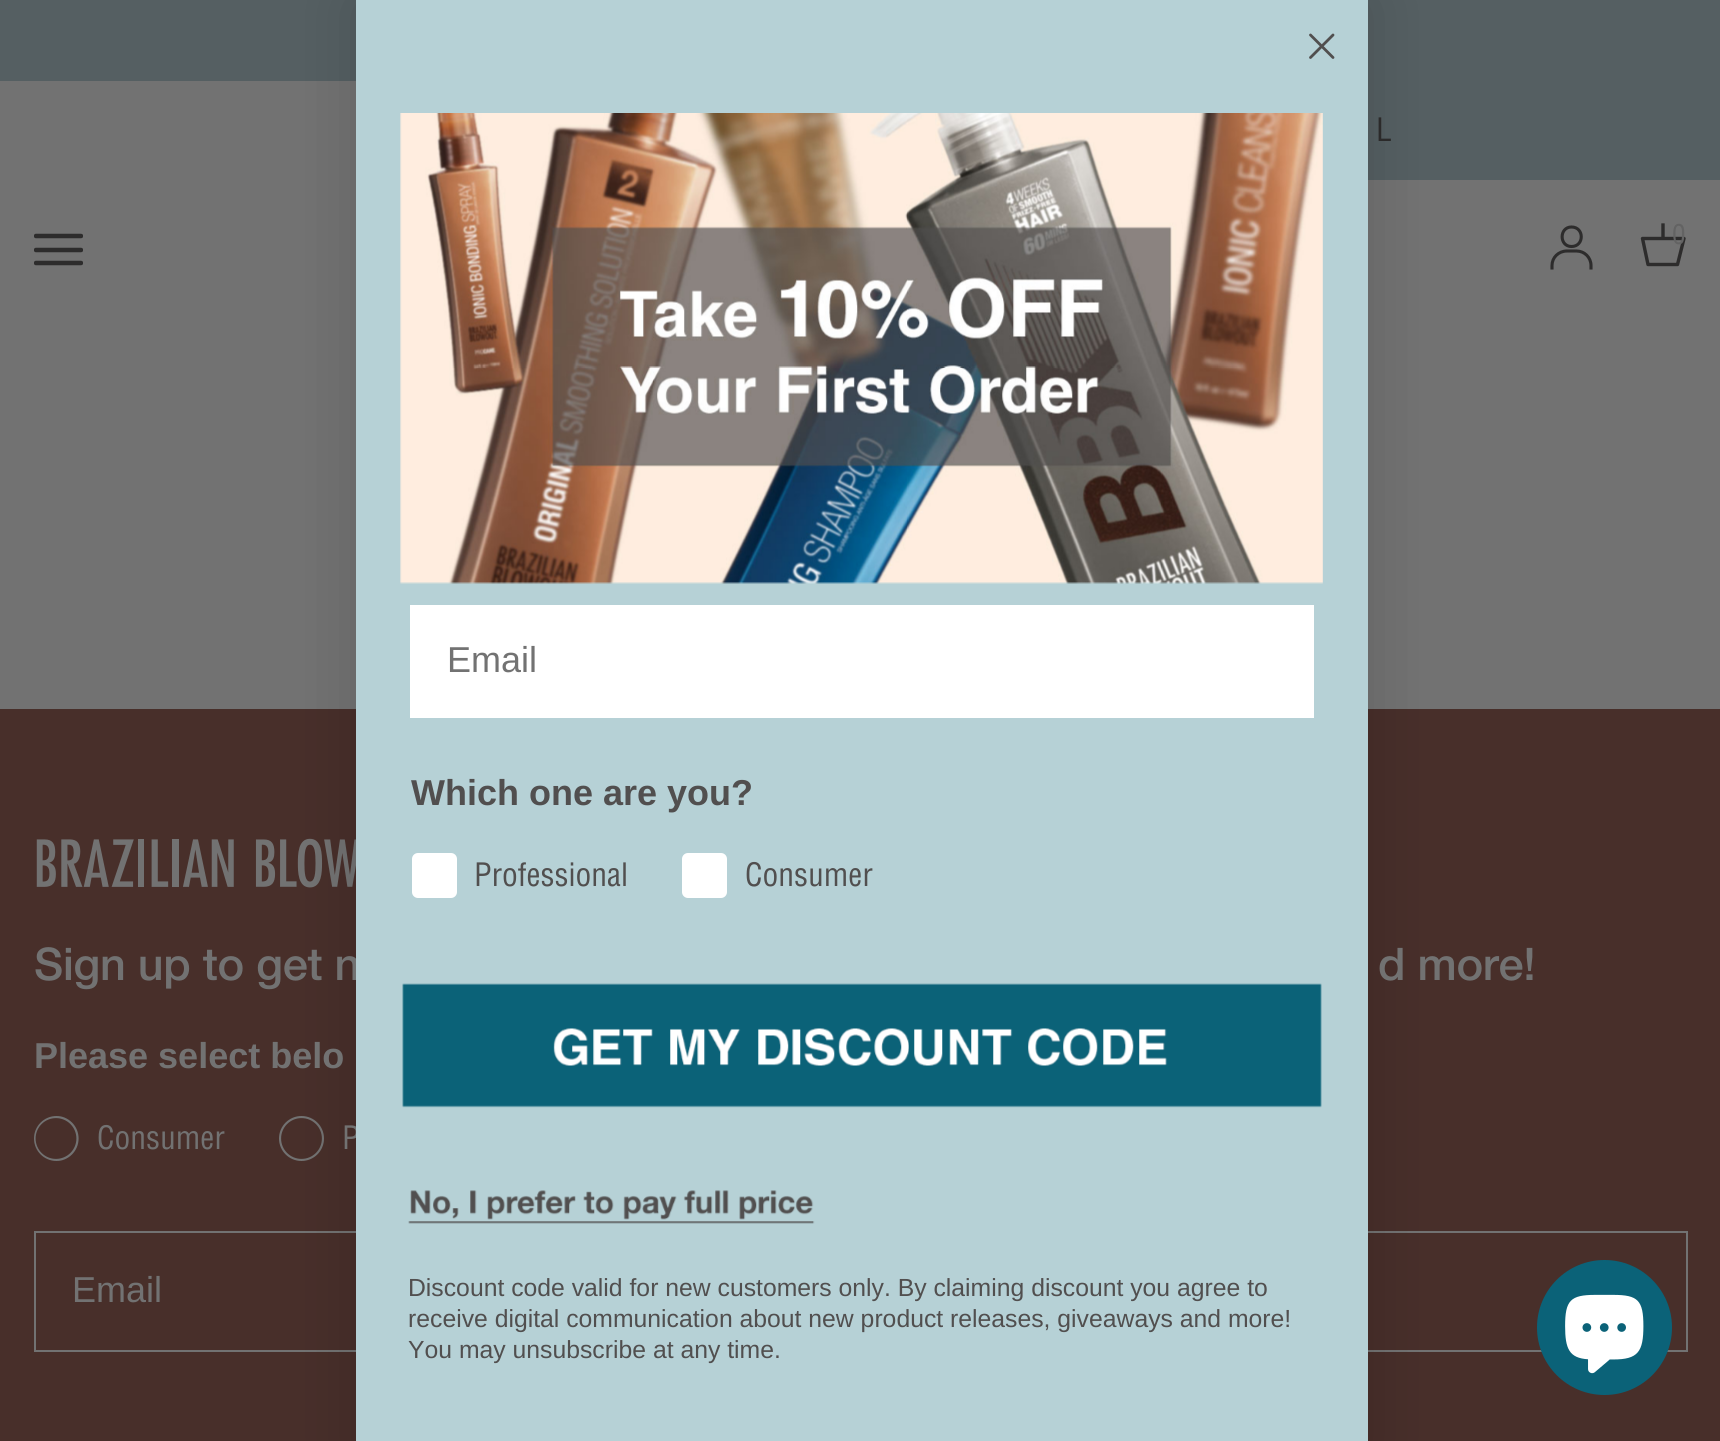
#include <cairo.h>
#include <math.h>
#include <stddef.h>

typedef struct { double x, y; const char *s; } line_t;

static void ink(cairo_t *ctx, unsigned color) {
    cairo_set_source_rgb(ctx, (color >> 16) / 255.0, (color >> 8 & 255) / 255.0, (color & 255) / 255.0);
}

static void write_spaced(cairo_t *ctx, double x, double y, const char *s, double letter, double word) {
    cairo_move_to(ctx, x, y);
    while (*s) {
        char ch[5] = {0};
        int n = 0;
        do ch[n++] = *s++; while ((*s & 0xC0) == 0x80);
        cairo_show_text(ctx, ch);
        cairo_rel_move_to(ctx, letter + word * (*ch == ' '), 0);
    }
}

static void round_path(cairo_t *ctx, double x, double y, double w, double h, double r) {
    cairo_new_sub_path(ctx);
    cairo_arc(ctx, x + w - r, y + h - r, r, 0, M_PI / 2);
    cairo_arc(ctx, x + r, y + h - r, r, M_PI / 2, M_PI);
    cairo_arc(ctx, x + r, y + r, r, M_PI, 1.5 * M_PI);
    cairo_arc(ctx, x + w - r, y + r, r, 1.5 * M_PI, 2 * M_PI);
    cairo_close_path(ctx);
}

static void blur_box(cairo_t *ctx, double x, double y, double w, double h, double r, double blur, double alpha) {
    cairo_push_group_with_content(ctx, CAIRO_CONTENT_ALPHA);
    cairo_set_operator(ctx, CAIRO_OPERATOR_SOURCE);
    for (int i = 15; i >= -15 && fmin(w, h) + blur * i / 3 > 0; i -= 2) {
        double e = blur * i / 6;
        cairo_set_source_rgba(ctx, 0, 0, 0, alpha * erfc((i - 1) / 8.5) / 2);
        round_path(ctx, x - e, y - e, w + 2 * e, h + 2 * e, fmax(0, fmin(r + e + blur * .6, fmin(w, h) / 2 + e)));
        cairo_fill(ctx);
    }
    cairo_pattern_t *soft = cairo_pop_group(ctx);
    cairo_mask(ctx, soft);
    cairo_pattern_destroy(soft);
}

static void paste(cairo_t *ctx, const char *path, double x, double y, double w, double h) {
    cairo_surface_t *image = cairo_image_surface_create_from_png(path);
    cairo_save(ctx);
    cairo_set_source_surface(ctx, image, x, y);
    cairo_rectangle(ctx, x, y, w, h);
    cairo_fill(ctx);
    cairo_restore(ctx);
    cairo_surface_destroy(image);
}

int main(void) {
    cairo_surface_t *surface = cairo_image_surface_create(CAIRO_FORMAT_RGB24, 1720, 1441);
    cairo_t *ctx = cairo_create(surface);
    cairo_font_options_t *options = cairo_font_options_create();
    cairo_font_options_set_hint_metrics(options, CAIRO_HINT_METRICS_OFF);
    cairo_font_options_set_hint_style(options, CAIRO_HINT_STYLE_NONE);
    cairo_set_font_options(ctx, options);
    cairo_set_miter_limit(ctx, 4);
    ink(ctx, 0x727272);
    cairo_paint(ctx);
    ink(ctx, 0x555F62);
    cairo_rectangle(ctx, 0, 0, 1720, 180);
    cairo_fill(ctx);
    ink(ctx, 0x727272);
    cairo_rectangle(ctx, 0, 81, 356, 99);
    cairo_fill(ctx);
    cairo_select_font_face(ctx, "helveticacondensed", CAIRO_FONT_SLANT_NORMAL, CAIRO_FONT_WEIGHT_NORMAL);
    cairo_set_font_size(ctx, 31.5);
    ink(ctx, 0x2D2C2C);
    cairo_move_to(ctx, 1376, 141);
    cairo_show_text(ctx, "L");
    cairo_save(ctx);
    cairo_rectangle(ctx, 34, 225, 49, 50);
    cairo_clip(ctx);
    cairo_new_path(ctx);
    cairo_move_to(ctx, 36, 236);
    cairo_line_to(ctx, 81, 236);
    cairo_move_to(ctx, 36, 250);
    cairo_line_to(ctx, 81, 250);
    cairo_move_to(ctx, 36, 263);
    cairo_line_to(ctx, 81, 263);
    cairo_set_line_width(ctx, 4.5);
    cairo_set_line_cap(ctx, CAIRO_LINE_CAP_ROUND);
    cairo_stroke(ctx);
    cairo_restore(ctx);
    cairo_new_path(ctx);
    cairo_move_to(ctx, 1571.5, 246.5);
    cairo_curve_to(ctx, 1559, 246.5, 1559, 227, 1571.5, 227);
    cairo_curve_to(ctx, 1584.5, 227, 1584.5, 246.5, 1571.5, 246.5);
    cairo_close_path(ctx);
    cairo_set_line_width(ctx, 3.1);
    cairo_set_line_cap(ctx, CAIRO_LINE_CAP_ROUND);
    cairo_stroke(ctx);
    cairo_new_path(ctx);
    cairo_move_to(ctx, 1552, 268);
    cairo_line_to(ctx, 1552, 265.5);
    cairo_curve_to(ctx, 1552, 257.5, 1558.5, 251, 1567, 251);
    cairo_line_to(ctx, 1576.5, 251);
    cairo_curve_to(ctx, 1584.5, 251, 1591, 257.5, 1591, 265.5);
    cairo_line_to(ctx, 1591, 268);
    cairo_set_line_cap(ctx, CAIRO_LINE_CAP_SQUARE);
    cairo_stroke(ctx);
    cairo_new_path(ctx);
    cairo_move_to(ctx, 1663, 238.5);
    cairo_line_to(ctx, 1663, 225);
    cairo_move_to(ctx, 1663, 238.5);
    cairo_line_to(ctx, 1642.5, 238.5);
    cairo_line_to(ctx, 1648, 264.5);
    cairo_line_to(ctx, 1677.5, 264.5);
    cairo_line_to(ctx, 1684, 238.5);
    cairo_close_path(ctx);
    cairo_set_line_width(ctx, 3.4);
    cairo_set_line_join(ctx, CAIRO_LINE_JOIN_ROUND);
    cairo_stroke(ctx);
    cairo_set_font_size(ctx, 27);
    ink(ctx, 0x636363);
    cairo_move_to(ctx, 1672, 244);
    cairo_show_text(ctx, "0");
    ink(ctx, 0x482F2A);
    cairo_rectangle(ctx, 0, 709, 1720, 732);
    cairo_fill(ctx);
    paste(ctx, "media/4.png", 36, 838, 320, 50);
    cairo_save(ctx);
    round_path(ctx, 279, 1116, 45, 45, 22.5);
    cairo_clip(ctx);
    cairo_arc(ctx, 301.5, 1138.5, 21.5, 0, 2 * M_PI);
    ink(ctx, 0x727272);
    cairo_set_line_width(ctx, 2.2);
    cairo_set_line_cap(ctx, CAIRO_LINE_CAP_BUTT);
    cairo_set_line_join(ctx, CAIRO_LINE_JOIN_MITER);
    cairo_stroke(ctx);
    cairo_restore(ctx);
    cairo_rectangle(ctx, 35, 1232, 1652, 119);
    ink(ctx, 0x727272);
    cairo_set_line_width(ctx, 2);
    cairo_set_line_cap(ctx, CAIRO_LINE_CAP_BUTT);
    cairo_set_line_join(ctx, CAIRO_LINE_JOIN_MITER);
    cairo_stroke(ctx);
    ink(ctx, 0x000000);
    blur_box(ctx, 356, 0, 1012, 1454, 0, 34, 0.15);
    cairo_select_font_face(ctx, "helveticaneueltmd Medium", CAIRO_FONT_SLANT_NORMAL, CAIRO_FONT_WEIGHT_NORMAL);
    cairo_set_font_size(ctx, 45);
    ink(ctx, 0x727272);
    write_spaced(ctx, 34, 980, "Sign up to get n", -0.25, 0);
    cairo_select_font_face(ctx, "helveticacondensed", CAIRO_FONT_SLANT_NORMAL, CAIRO_FONT_WEIGHT_NORMAL);
    cairo_set_font_size(ctx, 31.5);
    cairo_move_to(ctx, 342, 1149);
    cairo_show_text(ctx, "P");
    ink(ctx, 0xB6D1D6);
    cairo_rectangle(ctx, 356, 0, 1012, 1441);
    cairo_fill(ctx);
    cairo_new_path(ctx);
    cairo_move_to(ctx, 1310.5, 35);
    cairo_line_to(ctx, 1333, 57.5);
    cairo_move_to(ctx, 1310.5, 57.5);
    cairo_line_to(ctx, 1333, 35);
    cairo_close_path(ctx);
    ink(ctx, 0x514F4F);
    cairo_set_line_width(ctx, 2.8);
    cairo_set_line_cap(ctx, CAIRO_LINE_CAP_ROUND);
    cairo_set_line_join(ctx, CAIRO_LINE_JOIN_ROUND);
    cairo_stroke(ctx);
    paste(ctx, "media/1.png", 400, 113, 923, 471);
    ink(ctx, 0xFFFFFF);
    cairo_rectangle(ctx, 410, 605, 904, 113);
    cairo_fill(ctx);
    cairo_select_font_face(ctx, "Liberation Sans", CAIRO_FONT_SLANT_NORMAL, CAIRO_FONT_WEIGHT_NORMAL);
    cairo_set_font_size(ctx, 36);
    ink(ctx, 0x727272);
    cairo_move_to(ctx, 447, 672);
    cairo_show_text(ctx, "Email");
    cairo_select_font_face(ctx, "Liberation Sans", CAIRO_FONT_SLANT_NORMAL, CAIRO_FONT_WEIGHT_BOLD);
    ink(ctx, 0x514F4F);
    cairo_move_to(ctx, 411, 805);
    cairo_show_text(ctx, "Which one are you?");
    ink(ctx, 0xFFFFFF);
    round_path(ctx, 413, 854, 43, 43, 5);
    cairo_fill_preserve(ctx);
    cairo_set_line_width(ctx, 2);
    cairo_set_line_cap(ctx, CAIRO_LINE_CAP_BUTT);
    cairo_set_line_join(ctx, CAIRO_LINE_JOIN_MITER);
    cairo_stroke(ctx);
    cairo_select_font_face(ctx, "helveticacondensed", CAIRO_FONT_SLANT_NORMAL, CAIRO_FONT_WEIGHT_NORMAL);
    cairo_set_font_size(ctx, 31.5);
    ink(ctx, 0x514F4F);
    cairo_move_to(ctx, 474, 886);
    cairo_show_text(ctx, "Professional");
    ink(ctx, 0xFFFFFF);
    round_path(ctx, 683, 854, 43, 43, 5);
    cairo_fill_preserve(ctx);
    cairo_stroke(ctx);
    ink(ctx, 0x514F4F);
    cairo_move_to(ctx, 745, 886);
    cairo_show_text(ctx, "Consumer");
    paste(ctx, "media/2.png", 402, 983, 920, 125);
    paste(ctx, "media/3.png", 408, 1190, 407, 34);
    cairo_select_font_face(ctx, "Liberation Sans", CAIRO_FONT_SLANT_NORMAL, CAIRO_FONT_WEIGHT_NORMAL);
    cairo_set_font_size(ctx, 24.75);
    {
        static const line_t items[] = {
            {408, 1296, "Discount code valid for new customers only. By claiming discount you agree to"},
            {408, 1327, "receive digital communication about new product releases, giveaways and more!"},
            {408, 1358, "You may unsubscribe at any time."},
        };
        for (size_t i = 0; i < sizeof items / sizeof *items; i++) {
            cairo_move_to(ctx, items[i].x, items[i].y);
            cairo_show_text(ctx, items[i].s);
        }
    }
    cairo_select_font_face(ctx, "helveticaneueltmd Medium", CAIRO_FONT_SLANT_NORMAL, CAIRO_FONT_WEIGHT_NORMAL);
    cairo_set_font_size(ctx, 45);
    ink(ctx, 0x727272);
    write_spaced(ctx, 1378, 980, "d more!", -0.25, 0);
    cairo_select_font_face(ctx, "Liberation Sans", CAIRO_FONT_SLANT_NORMAL, CAIRO_FONT_WEIGHT_BOLD);
    cairo_set_font_size(ctx, 36);
    cairo_move_to(ctx, 34, 1068);
    cairo_show_text(ctx, "Please select belo");
    cairo_save(ctx);
    round_path(ctx, 34, 1116, 45, 45, 22.5);
    cairo_clip(ctx);
    cairo_arc(ctx, 56, 1138.5, 21.5, 0, 2 * M_PI);
    cairo_set_line_width(ctx, 2.2);
    cairo_stroke(ctx);
    cairo_restore(ctx);
    cairo_select_font_face(ctx, "helveticacondensed", CAIRO_FONT_SLANT_NORMAL, CAIRO_FONT_WEIGHT_NORMAL);
    cairo_set_font_size(ctx, 31.5);
    cairo_move_to(ctx, 97, 1149);
    cairo_show_text(ctx, "Consumer");
    cairo_select_font_face(ctx, "Liberation Sans", CAIRO_FONT_SLANT_NORMAL, CAIRO_FONT_WEIGHT_NORMAL);
    cairo_set_font_size(ctx, 36);
    cairo_move_to(ctx, 72, 1302);
    cairo_show_text(ctx, "Email");
    ink(ctx, 0x0B6278);
    cairo_new_path(ctx);
    cairo_arc(ctx, 1604.5, 1327.5, 67.5, 0, 2 * M_PI);
    cairo_fill(ctx);
    paste(ctx, "media/5.png", 1565, 1294, 79, 80);
    cairo_surface_write_to_png(surface, "image.png");
    cairo_font_options_destroy(options);
    cairo_destroy(ctx);
    cairo_surface_destroy(surface);
    return 0;
}
